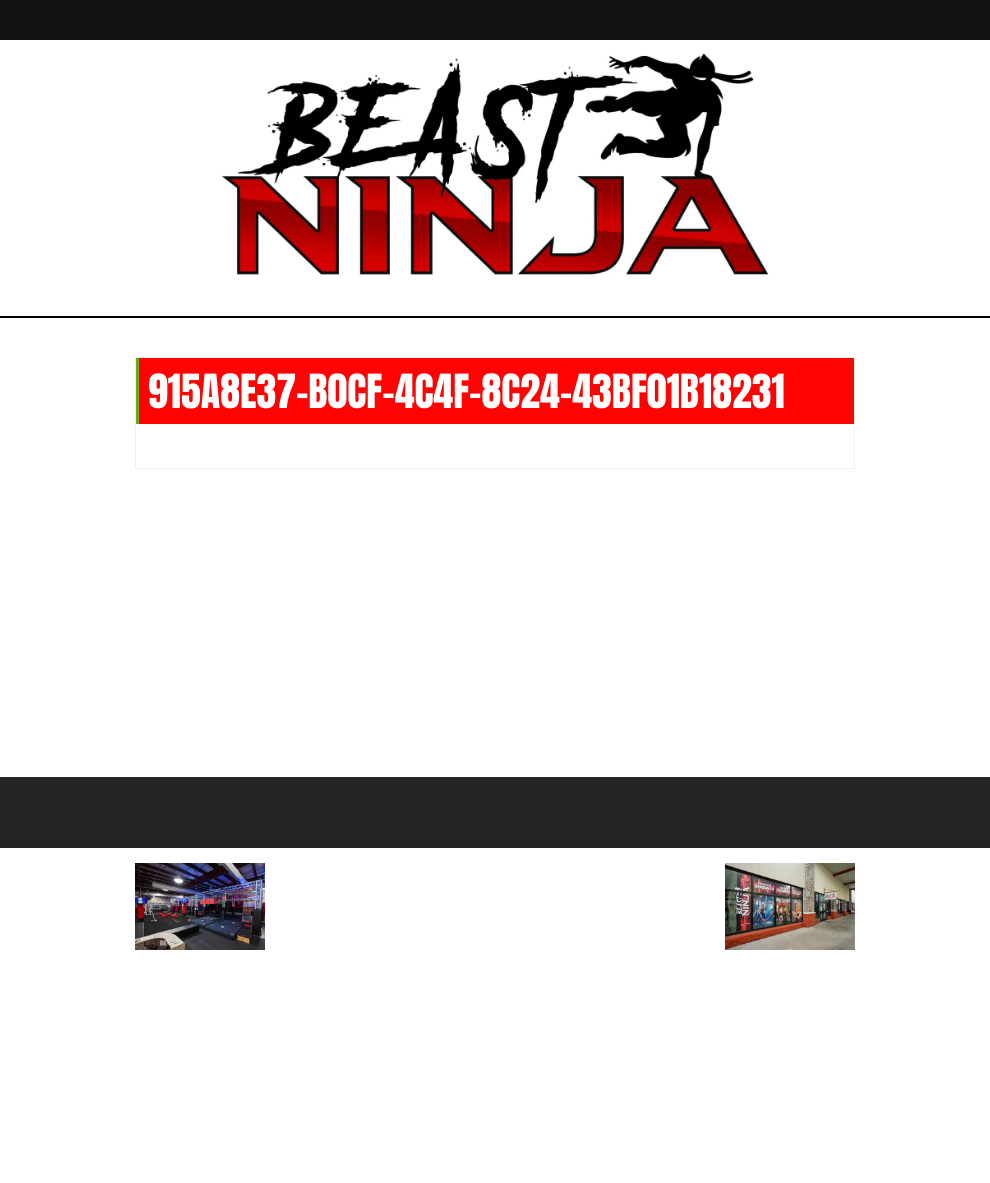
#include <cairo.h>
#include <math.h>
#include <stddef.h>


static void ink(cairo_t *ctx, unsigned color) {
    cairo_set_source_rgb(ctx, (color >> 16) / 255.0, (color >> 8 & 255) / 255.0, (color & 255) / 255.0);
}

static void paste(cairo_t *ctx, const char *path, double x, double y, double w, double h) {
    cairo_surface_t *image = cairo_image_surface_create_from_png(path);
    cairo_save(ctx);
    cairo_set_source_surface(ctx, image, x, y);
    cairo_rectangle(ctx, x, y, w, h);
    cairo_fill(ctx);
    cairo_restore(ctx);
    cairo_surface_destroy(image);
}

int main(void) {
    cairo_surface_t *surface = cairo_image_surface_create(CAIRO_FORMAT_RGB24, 990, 1183);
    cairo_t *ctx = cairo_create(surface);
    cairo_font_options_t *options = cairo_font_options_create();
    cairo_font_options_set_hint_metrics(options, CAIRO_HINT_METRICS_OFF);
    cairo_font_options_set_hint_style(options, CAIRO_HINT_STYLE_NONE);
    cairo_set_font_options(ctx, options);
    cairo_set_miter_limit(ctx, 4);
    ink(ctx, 0xFFFFFF);
    cairo_paint(ctx);
    ink(ctx, 0x111111);
    cairo_rectangle(ctx, 0, 0, 990, 40);
    cairo_fill(ctx);
    paste(ctx, "media/1.png", 221, 53, 548, 222);
    ink(ctx, 0x000000);
    cairo_rectangle(ctx, 0, 316, 990, 2);
    cairo_fill(ctx);
    cairo_rectangle(ctx, 135.5, 357.5, 719, 111);
    ink(ctx, 0xEDF5E2);
    cairo_set_line_width(ctx, 1);
    cairo_stroke(ctx);
    ink(ctx, 0xFD0303);
    cairo_rectangle(ctx, 139, 358, 715, 66);
    cairo_fill(ctx);
    ink(ctx, 0x68AC10);
    cairo_rectangle(ctx, 136, 358, 3, 66);
    cairo_fill(ctx);
    cairo_select_font_face(ctx, "Anton", CAIRO_FONT_SLANT_NORMAL, CAIRO_FONT_WEIGHT_NORMAL);
    cairo_set_font_size(ctx, 40);
    ink(ctx, 0xFFFFFF);
    cairo_move_to(ctx, 148, 408);
    cairo_show_text(ctx, "915A8E37-B0CF-4C4F-8C24-43BF01B18231");
    ink(ctx, 0x272424);
    cairo_rectangle(ctx, 0, 777, 990, 71);
    cairo_fill(ctx);
    paste(ctx, "media/2.png", 135, 863, 130, 87);
    paste(ctx, "media/3.png", 725, 863, 130, 87);
    cairo_surface_write_to_png(surface, "image.png");
    cairo_font_options_destroy(options);
    cairo_destroy(ctx);
    cairo_surface_destroy(surface);
    return 0;
}
